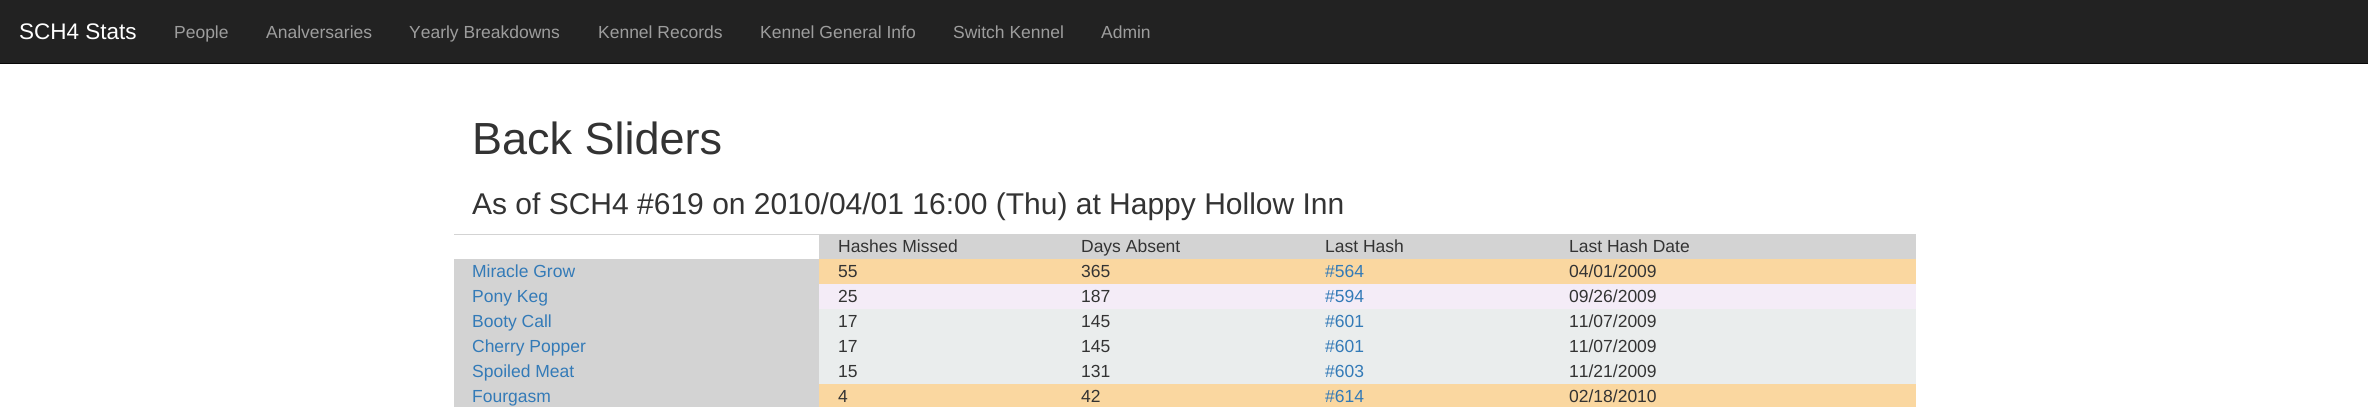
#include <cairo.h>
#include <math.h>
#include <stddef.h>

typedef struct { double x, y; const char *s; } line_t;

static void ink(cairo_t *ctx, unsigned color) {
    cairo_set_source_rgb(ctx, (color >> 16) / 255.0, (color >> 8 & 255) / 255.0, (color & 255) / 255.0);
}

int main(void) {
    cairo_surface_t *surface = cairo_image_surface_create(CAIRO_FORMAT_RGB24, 2368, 407);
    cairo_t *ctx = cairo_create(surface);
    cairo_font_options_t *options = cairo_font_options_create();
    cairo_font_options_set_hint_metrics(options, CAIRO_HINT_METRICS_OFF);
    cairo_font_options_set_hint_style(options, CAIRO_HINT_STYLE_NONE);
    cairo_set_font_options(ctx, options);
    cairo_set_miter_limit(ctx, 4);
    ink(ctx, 0xFFFFFF);
    cairo_paint(ctx);
    ink(ctx, 0x222222);
    cairo_rectangle(ctx, 0, 0, 2368, 63);
    cairo_fill(ctx);
    ink(ctx, 0x080808);
    cairo_rectangle(ctx, 0, 63, 2368, 1);
    cairo_fill(ctx);
    cairo_select_font_face(ctx, "Liberation Sans", CAIRO_FONT_SLANT_NORMAL, CAIRO_FONT_WEIGHT_NORMAL);
    cairo_set_font_size(ctx, 22.5);
    ink(ctx, 0xFFFFFF);
    cairo_move_to(ctx, 19, 39);
    cairo_show_text(ctx, "SCH4 Stats");
    cairo_set_font_size(ctx, 17.5);
    ink(ctx, 0x9D9D9D);
    {
        static const line_t items[] = {
            {174, 38, "People"},
            {266, 38, "Analversaries"},
            {409, 38, "Yearly Breakdowns"},
            {598, 38, "Kennel Records"},
            {760, 38, "Kennel General Info"},
            {953, 38, "Switch Kennel"},
            {1101, 38, "Admin"},
        };
        for (size_t i = 0; i < sizeof items / sizeof *items; i++) {
            cairo_move_to(ctx, items[i].x, items[i].y);
            cairo_show_text(ctx, items[i].s);
        }
    }
    cairo_set_font_size(ctx, 45);
    ink(ctx, 0x333333);
    cairo_move_to(ctx, 472, 154);
    cairo_show_text(ctx, "Back Sliders");
    cairo_set_font_size(ctx, 30);
    cairo_move_to(ctx, 472, 214);
    cairo_show_text(ctx, "As of SCH4 #619 on 2010/04/01 16:00 (Thu) at Happy Hollow Inn");
    ink(ctx, 0xD3D3D3);
    cairo_rectangle(ctx, 454, 234, 365, 1);
    cairo_fill(ctx);
    cairo_rectangle(ctx, 819, 234, 1097, 25);
    cairo_fill(ctx);
    cairo_set_font_size(ctx, 17.5);
    ink(ctx, 0x333333);
    {
        static const line_t items[] = {
            {838, 252, "Hashes Missed"},
            {1081, 252, "Days Absent"},
            {1325, 252, "Last Hash"},
            {1569, 252, "Last Hash Date"},
        };
        for (size_t i = 0; i < sizeof items / sizeof *items; i++) {
            cairo_move_to(ctx, items[i].x, items[i].y);
            cairo_show_text(ctx, items[i].s);
        }
    }
    ink(ctx, 0xD3D3D3);
    cairo_rectangle(ctx, 454, 259, 365, 148);
    cairo_fill(ctx);
    ink(ctx, 0x337AB7);
    cairo_move_to(ctx, 472, 277);
    cairo_show_text(ctx, "Miracle Grow");
    ink(ctx, 0xFAD7A0);
    cairo_rectangle(ctx, 819, 259, 1097, 25);
    cairo_fill(ctx);
    ink(ctx, 0x333333);
    cairo_move_to(ctx, 838, 277);
    cairo_show_text(ctx, "55");
    cairo_move_to(ctx, 1081, 277);
    cairo_show_text(ctx, "365");
    ink(ctx, 0x337AB7);
    cairo_move_to(ctx, 1325, 277);
    cairo_show_text(ctx, "#564");
    ink(ctx, 0x333333);
    cairo_move_to(ctx, 1569, 277);
    cairo_show_text(ctx, "04/01/2009");
    ink(ctx, 0x337AB7);
    cairo_move_to(ctx, 472, 302);
    cairo_show_text(ctx, "Pony Keg");
    ink(ctx, 0xF4ECF7);
    cairo_rectangle(ctx, 819, 284, 1097, 25);
    cairo_fill(ctx);
    ink(ctx, 0x333333);
    cairo_move_to(ctx, 838, 302);
    cairo_show_text(ctx, "25");
    cairo_move_to(ctx, 1081, 302);
    cairo_show_text(ctx, "187");
    ink(ctx, 0x337AB7);
    cairo_move_to(ctx, 1325, 302);
    cairo_show_text(ctx, "#594");
    ink(ctx, 0x333333);
    cairo_move_to(ctx, 1569, 302);
    cairo_show_text(ctx, "09/26/2009");
    ink(ctx, 0x337AB7);
    cairo_move_to(ctx, 472, 327);
    cairo_show_text(ctx, "Booty Call");
    ink(ctx, 0xEAEDED);
    cairo_rectangle(ctx, 819, 309, 1097, 25);
    cairo_fill(ctx);
    ink(ctx, 0x333333);
    cairo_move_to(ctx, 838, 327);
    cairo_show_text(ctx, "17");
    cairo_move_to(ctx, 1081, 327);
    cairo_show_text(ctx, "145");
    ink(ctx, 0x337AB7);
    cairo_move_to(ctx, 1325, 327);
    cairo_show_text(ctx, "#601");
    ink(ctx, 0x333333);
    cairo_move_to(ctx, 1569, 327);
    cairo_show_text(ctx, "11/07/2009");
    ink(ctx, 0x337AB7);
    cairo_move_to(ctx, 472, 352);
    cairo_show_text(ctx, "Cherry Popper");
    ink(ctx, 0xEAEDED);
    cairo_rectangle(ctx, 819, 334, 1097, 25);
    cairo_fill(ctx);
    ink(ctx, 0x333333);
    cairo_move_to(ctx, 838, 352);
    cairo_show_text(ctx, "17");
    cairo_move_to(ctx, 1081, 352);
    cairo_show_text(ctx, "145");
    ink(ctx, 0x337AB7);
    cairo_move_to(ctx, 1325, 352);
    cairo_show_text(ctx, "#601");
    ink(ctx, 0x333333);
    cairo_move_to(ctx, 1569, 352);
    cairo_show_text(ctx, "11/07/2009");
    ink(ctx, 0x337AB7);
    cairo_move_to(ctx, 472, 377);
    cairo_show_text(ctx, "Spoiled Meat");
    ink(ctx, 0xEAEDED);
    cairo_rectangle(ctx, 819, 359, 1097, 25);
    cairo_fill(ctx);
    ink(ctx, 0x333333);
    cairo_move_to(ctx, 838, 377);
    cairo_show_text(ctx, "15");
    cairo_move_to(ctx, 1081, 377);
    cairo_show_text(ctx, "131");
    ink(ctx, 0x337AB7);
    cairo_move_to(ctx, 1325, 377);
    cairo_show_text(ctx, "#603");
    ink(ctx, 0x333333);
    cairo_move_to(ctx, 1569, 377);
    cairo_show_text(ctx, "11/21/2009");
    ink(ctx, 0x337AB7);
    cairo_move_to(ctx, 472, 402);
    cairo_show_text(ctx, "Fourgasm");
    ink(ctx, 0xFAD7A0);
    cairo_rectangle(ctx, 819, 384, 1097, 23);
    cairo_fill(ctx);
    ink(ctx, 0x333333);
    cairo_move_to(ctx, 838, 402);
    cairo_show_text(ctx, "4");
    cairo_move_to(ctx, 1081, 402);
    cairo_show_text(ctx, "42");
    ink(ctx, 0x337AB7);
    cairo_move_to(ctx, 1325, 402);
    cairo_show_text(ctx, "#614");
    ink(ctx, 0x333333);
    cairo_move_to(ctx, 1569, 402);
    cairo_show_text(ctx, "02/18/2010");
    cairo_surface_write_to_png(surface, "image.png");
    cairo_font_options_destroy(options);
    cairo_destroy(ctx);
    cairo_surface_destroy(surface);
    return 0;
}
